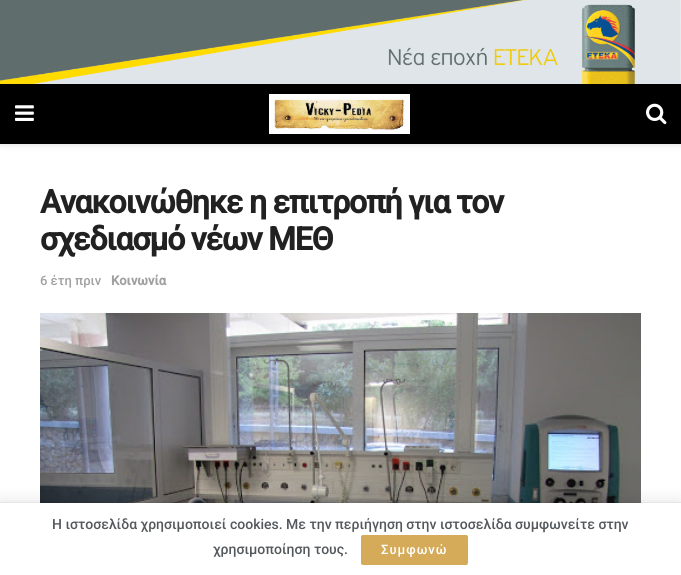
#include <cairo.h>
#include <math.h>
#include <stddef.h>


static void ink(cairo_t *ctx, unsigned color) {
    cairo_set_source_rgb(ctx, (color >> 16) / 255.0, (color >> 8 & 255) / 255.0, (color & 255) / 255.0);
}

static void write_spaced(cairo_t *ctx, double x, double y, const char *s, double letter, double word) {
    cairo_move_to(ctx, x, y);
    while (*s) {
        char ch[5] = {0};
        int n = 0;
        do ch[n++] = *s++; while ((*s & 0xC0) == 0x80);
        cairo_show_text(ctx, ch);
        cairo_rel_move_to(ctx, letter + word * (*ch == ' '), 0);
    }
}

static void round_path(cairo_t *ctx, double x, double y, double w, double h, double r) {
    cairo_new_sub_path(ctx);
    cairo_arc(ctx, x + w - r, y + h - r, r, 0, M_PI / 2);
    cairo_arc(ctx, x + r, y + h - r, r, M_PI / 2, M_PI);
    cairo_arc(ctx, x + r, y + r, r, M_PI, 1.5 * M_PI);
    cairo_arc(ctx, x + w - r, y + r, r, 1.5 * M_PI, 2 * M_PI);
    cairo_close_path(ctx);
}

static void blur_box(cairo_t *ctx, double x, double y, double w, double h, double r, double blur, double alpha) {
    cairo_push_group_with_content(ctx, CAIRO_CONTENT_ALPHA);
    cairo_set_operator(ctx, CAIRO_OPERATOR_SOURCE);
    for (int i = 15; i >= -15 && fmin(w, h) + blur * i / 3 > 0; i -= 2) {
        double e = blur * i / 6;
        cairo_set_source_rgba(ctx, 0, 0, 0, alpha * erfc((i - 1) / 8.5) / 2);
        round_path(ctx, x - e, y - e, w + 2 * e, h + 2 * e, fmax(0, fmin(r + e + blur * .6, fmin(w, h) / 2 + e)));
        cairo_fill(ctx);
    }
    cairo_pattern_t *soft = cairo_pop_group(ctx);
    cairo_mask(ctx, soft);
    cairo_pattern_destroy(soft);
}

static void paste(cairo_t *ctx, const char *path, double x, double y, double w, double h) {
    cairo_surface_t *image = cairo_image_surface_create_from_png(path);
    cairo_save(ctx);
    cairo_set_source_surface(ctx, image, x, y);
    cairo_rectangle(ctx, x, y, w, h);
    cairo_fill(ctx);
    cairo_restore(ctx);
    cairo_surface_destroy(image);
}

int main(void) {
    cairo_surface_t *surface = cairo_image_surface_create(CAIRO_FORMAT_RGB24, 681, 575);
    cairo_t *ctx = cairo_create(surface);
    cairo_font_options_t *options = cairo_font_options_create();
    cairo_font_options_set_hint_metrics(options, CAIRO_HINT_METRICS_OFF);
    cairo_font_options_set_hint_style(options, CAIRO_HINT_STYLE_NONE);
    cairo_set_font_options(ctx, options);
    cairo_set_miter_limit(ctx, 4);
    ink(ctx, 0xFFFFFF);
    cairo_paint(ctx);
    ink(ctx, 0x000000);
    blur_box(ctx, 0, 86, 681, 60, 0, 3, 0.1);
    paste(ctx, "media/1.png", 0, 0, 681, 84);
    ink(ctx, 0x000000);
    cairo_rectangle(ctx, 0, 84, 681, 60);
    cairo_fill(ctx);
    paste(ctx, "media/2.png", 15, 105, 19, 16);
    paste(ctx, "media/3.png", 269, 94, 141, 40);
    paste(ctx, "media/4.png", 646, 103, 21, 22);
    cairo_select_font_face(ctx, "Roboto", CAIRO_FONT_SLANT_NORMAL, CAIRO_FONT_WEIGHT_BOLD);
    cairo_set_font_size(ctx, 32);
    ink(ctx, 0x212121);
    write_spaced(ctx, 40, 213, "Ανακοινώθηκε η επιτροπή για τον", -1.25, 0);
    write_spaced(ctx, 40, 250, "σχεδιασμό νέων ΜΕΘ", -1.25, 0);
    cairo_select_font_face(ctx, "Roboto Medium", CAIRO_FONT_SLANT_NORMAL, CAIRO_FONT_WEIGHT_NORMAL);
    cairo_set_font_size(ctx, 13);
    ink(ctx, 0xA0A0A0);
    cairo_move_to(ctx, 40, 285);
    cairo_show_text(ctx, "6 έτη πριν");
    cairo_select_font_face(ctx, "Roboto", CAIRO_FONT_SLANT_NORMAL, CAIRO_FONT_WEIGHT_BOLD);
    cairo_move_to(ctx, 111, 285);
    cairo_show_text(ctx, "Κοινωνία");
    paste(ctx, "media/5.png", 40, 313, 601, 190);
    ink(ctx, 0x000000);
    blur_box(ctx, 0, 505, 681, 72, 0, 10, 0.15);
    blur_box(ctx, 0, 503, 681, 72, 0, 0.5, 0.2);
    ink(ctx, 0xFFFFFF);
    cairo_rectangle(ctx, 0, 503, 681, 72);
    cairo_fill(ctx);
    cairo_select_font_face(ctx, "Roboto Medium", CAIRO_FONT_SLANT_NORMAL, CAIRO_FONT_WEIGHT_NORMAL);
    cairo_set_font_size(ctx, 14);
    ink(ctx, 0x53585C);
    cairo_move_to(ctx, 52, 529);
    cairo_show_text(ctx, "Η ιστοσελίδα χρησιμοποιεί cookies. Με την περιήγηση στην ιστοσελίδα συμφωνείτε στην");
    cairo_move_to(ctx, 213, 554);
    cairo_show_text(ctx, "χρησιμοποίηση τους.");
    ink(ctx, 0xD5AB59);
    round_path(ctx, 361, 535, 107, 30, 2);
    cairo_fill(ctx);
    cairo_set_font_size(ctx, 13);
    ink(ctx, 0xFFFFFF);
    write_spaced(ctx, 381, 554, "Συμφωνώ", 1, 0);
    cairo_surface_write_to_png(surface, "image.png");
    cairo_font_options_destroy(options);
    cairo_destroy(ctx);
    cairo_surface_destroy(surface);
    return 0;
}
